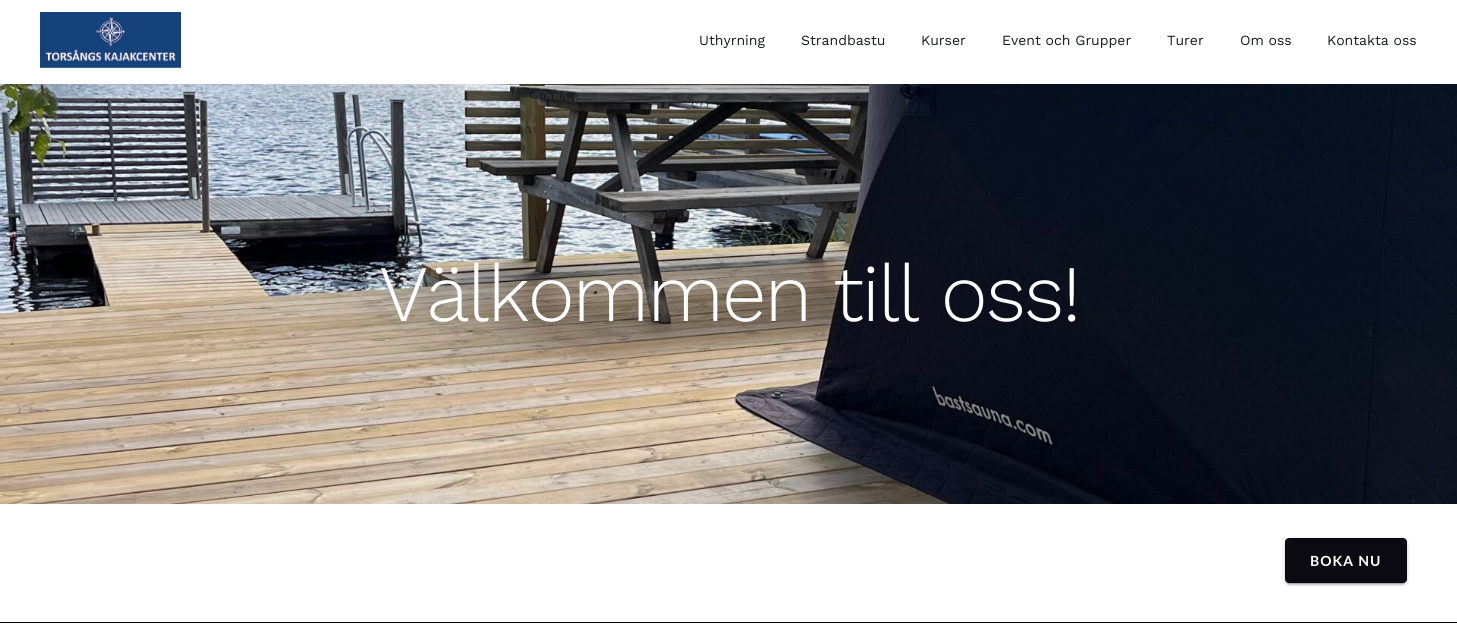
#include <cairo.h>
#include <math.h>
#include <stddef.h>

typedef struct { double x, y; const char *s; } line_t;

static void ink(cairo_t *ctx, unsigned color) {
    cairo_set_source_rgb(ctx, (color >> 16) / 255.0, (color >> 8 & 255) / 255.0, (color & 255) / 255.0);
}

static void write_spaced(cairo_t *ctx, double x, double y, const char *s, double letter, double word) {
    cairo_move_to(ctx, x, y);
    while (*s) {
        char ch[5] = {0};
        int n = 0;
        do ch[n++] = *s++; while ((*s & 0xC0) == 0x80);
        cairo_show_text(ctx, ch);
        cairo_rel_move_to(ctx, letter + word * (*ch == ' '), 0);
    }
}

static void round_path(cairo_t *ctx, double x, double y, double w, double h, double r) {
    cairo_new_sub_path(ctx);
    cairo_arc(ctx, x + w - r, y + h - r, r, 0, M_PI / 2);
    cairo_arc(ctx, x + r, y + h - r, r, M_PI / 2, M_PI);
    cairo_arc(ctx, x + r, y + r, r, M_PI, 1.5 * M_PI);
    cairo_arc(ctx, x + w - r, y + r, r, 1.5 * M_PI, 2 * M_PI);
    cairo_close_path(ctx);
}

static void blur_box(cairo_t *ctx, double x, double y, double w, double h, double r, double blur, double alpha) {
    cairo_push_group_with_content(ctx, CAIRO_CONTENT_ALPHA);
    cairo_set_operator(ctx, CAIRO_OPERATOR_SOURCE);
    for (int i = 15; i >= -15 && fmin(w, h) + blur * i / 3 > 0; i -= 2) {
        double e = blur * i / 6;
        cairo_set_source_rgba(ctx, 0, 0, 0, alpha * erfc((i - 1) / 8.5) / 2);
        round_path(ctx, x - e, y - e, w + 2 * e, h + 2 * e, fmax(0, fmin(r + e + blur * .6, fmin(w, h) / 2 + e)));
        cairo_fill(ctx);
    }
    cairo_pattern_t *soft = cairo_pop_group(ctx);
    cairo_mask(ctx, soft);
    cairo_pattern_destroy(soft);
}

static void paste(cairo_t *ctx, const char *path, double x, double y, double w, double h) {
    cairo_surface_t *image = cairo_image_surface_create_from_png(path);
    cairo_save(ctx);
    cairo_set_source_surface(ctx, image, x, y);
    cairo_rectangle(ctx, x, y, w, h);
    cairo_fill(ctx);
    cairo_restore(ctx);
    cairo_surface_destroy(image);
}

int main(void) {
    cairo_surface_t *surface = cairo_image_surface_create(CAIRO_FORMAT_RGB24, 1457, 633);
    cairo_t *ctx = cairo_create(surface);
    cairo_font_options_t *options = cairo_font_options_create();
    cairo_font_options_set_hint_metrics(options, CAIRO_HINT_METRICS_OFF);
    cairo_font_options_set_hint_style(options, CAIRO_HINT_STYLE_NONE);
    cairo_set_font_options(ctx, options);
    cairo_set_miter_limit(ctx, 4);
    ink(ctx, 0xFFFFFF);
    cairo_paint(ctx);
    paste(ctx, "media/1.png", 40, 12, 141, 56);
    cairo_select_font_face(ctx, "Work Sans", CAIRO_FONT_SLANT_NORMAL, CAIRO_FONT_WEIGHT_NORMAL);
    cairo_set_font_size(ctx, 14);
    ink(ctx, 0x181B20);
    {
        static const line_t items[] = {
            {699, 45, "Uthyrning"},
            {801, 45, "Strandbastu"},
            {921, 45, "Kurser"},
            {1002, 45, "Event och Grupper"},
            {1167, 45, "Turer"},
            {1240, 45, "Om oss"},
            {1327, 45, "Kontakta oss"},
        };
        for (size_t i = 0; i < sizeof items / sizeof *items; i++) {
            cairo_move_to(ctx, items[i].x, items[i].y);
            cairo_show_text(ctx, items[i].s);
        }
    }
    paste(ctx, "media/2.png", 0, 84, 1457, 420);
    cairo_select_font_face(ctx, "Work Sans Light", CAIRO_FONT_SLANT_NORMAL, CAIRO_FONT_WEIGHT_NORMAL);
    cairo_set_font_size(ctx, 80);
    ink(ctx, 0xFFFFFF);
    write_spaced(ctx, 379, 321, "Välkommen till oss!", -2, 0);
    ink(ctx, 0x000000);
    cairo_rectangle(ctx, 0, 622, 1457, 1);
    cairo_fill(ctx);
    ink(ctx, 0x000000);
    blur_box(ctx, 1285, 539, 122, 45, 4, 2.5, 0.12);
    blur_box(ctx, 1285, 540, 122, 45, 4, 1, 0.14);
    blur_box(ctx, 1287, 543, 118, 41, 2, 0.5, 0.2);
    ink(ctx, 0x0B0911);
    round_path(ctx, 1285, 538, 122, 45, 4);
    cairo_fill(ctx);
    cairo_select_font_face(ctx, "Lato", CAIRO_FONT_SLANT_NORMAL, CAIRO_FONT_WEIGHT_BOLD);
    cairo_set_font_size(ctx, 14);
    ink(ctx, 0xFFFFFF);
    write_spaced(ctx, 1310, 566, "BOKA NU", 1, 0);
    cairo_surface_write_to_png(surface, "image.png");
    cairo_font_options_destroy(options);
    cairo_destroy(ctx);
    cairo_surface_destroy(surface);
    return 0;
}
